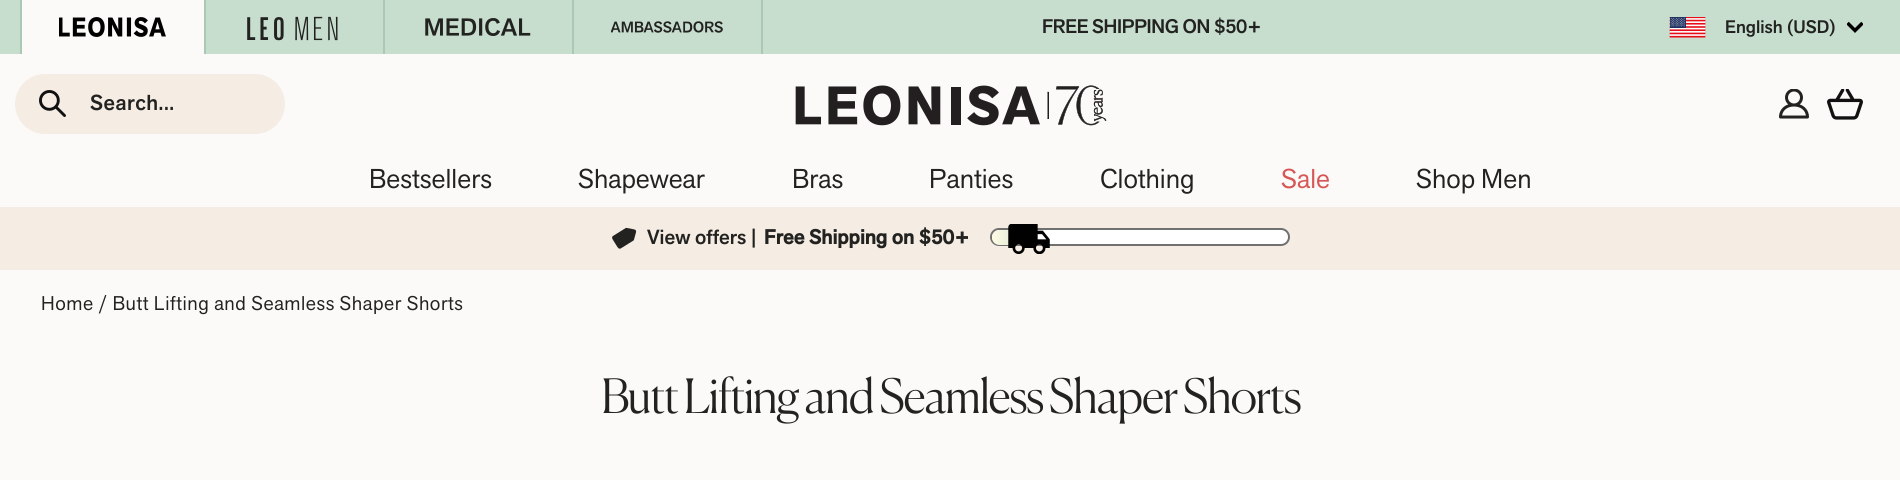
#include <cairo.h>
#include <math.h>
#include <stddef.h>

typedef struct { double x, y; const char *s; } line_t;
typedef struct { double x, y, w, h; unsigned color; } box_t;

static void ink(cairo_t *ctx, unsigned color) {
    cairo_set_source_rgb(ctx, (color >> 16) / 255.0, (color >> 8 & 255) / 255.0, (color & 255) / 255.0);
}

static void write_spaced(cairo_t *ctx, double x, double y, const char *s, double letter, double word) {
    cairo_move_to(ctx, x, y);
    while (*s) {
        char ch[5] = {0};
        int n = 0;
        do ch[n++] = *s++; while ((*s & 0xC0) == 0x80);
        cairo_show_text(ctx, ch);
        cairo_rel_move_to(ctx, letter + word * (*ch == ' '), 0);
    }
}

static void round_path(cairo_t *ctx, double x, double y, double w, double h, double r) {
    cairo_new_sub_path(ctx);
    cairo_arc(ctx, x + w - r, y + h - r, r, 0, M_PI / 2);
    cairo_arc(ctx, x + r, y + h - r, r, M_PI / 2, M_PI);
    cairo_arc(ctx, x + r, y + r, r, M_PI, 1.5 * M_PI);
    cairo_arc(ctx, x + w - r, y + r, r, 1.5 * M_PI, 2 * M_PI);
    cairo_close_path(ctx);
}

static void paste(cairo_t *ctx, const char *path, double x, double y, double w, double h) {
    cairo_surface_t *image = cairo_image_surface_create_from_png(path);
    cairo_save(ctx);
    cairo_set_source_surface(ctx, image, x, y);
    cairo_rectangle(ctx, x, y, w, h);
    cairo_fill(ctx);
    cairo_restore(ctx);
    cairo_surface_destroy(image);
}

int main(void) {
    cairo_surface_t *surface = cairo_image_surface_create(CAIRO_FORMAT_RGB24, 1900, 480);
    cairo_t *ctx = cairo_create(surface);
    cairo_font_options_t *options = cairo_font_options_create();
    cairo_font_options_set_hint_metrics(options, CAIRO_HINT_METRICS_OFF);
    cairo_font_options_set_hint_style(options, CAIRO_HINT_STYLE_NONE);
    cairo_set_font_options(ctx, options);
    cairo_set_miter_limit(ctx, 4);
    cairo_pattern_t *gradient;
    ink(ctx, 0xFBFAF8);
    cairo_paint(ctx);
    {
        static const box_t items[] = {
            {0, 0, 1900, 54, 0xC7DECE},
            {22, 0, 182, 54, 0xFBFAF8},
            {20, 0, 2, 54, 0xABC8B4},
        };
        for (size_t i = 0; i < sizeof items / sizeof *items; i++) {
            ink(ctx, items[i].color);
            cairo_rectangle(ctx, items[i].x, items[i].y, items[i].w, items[i].h);
            cairo_fill(ctx);
        }
    }
    paste(ctx, "media/1.png", 59, 17, 107, 20);
    cairo_rectangle(ctx, 204, 0, 2, 54);
    cairo_fill(ctx);
    paste(ctx, "media/2.png", 247, 16, 91, 25);
    cairo_rectangle(ctx, 383, 0, 2, 54);
    cairo_fill(ctx);
    paste(ctx, "media/3.png", 425, 18, 106, 18);
    cairo_rectangle(ctx, 761, 0, 2, 54);
    cairo_fill(ctx);
    cairo_rectangle(ctx, 572, 0, 2, 54);
    cairo_fill(ctx);
    paste(ctx, "media/4.png", 611, 21, 112, 12);
    cairo_select_font_face(ctx, "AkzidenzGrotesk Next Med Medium", CAIRO_FONT_SLANT_NORMAL, CAIRO_FONT_WEIGHT_NORMAL);
    cairo_set_font_size(ctx, 19.5);
    ink(ctx, 0x222221);
    write_spaced(ctx, 1042, 33, "FREE SHIPPING ON $50+", -0.4, 0);
    paste(ctx, "media/5.png", 1669, 17, 37, 21);
    cairo_set_font_size(ctx, 18);
    cairo_move_to(ctx, 1725, 33);
    cairo_show_text(ctx, "English (USD)");
    cairo_save(ctx);
    cairo_rectangle(ctx, 1847, 20, 16, 16);
    cairo_clip(ctx);
    cairo_new_path(ctx);
    cairo_move_to(ctx, 1847.5, 23);
    cairo_line_to(ctx, 1855, 30.5);
    cairo_line_to(ctx, 1862.5, 23);
    ink(ctx, 0x000000);
    cairo_set_line_width(ctx, 3.5);
    cairo_stroke(ctx);
    cairo_restore(ctx);
    ink(ctx, 0xF5ECE3);
    round_path(ctx, 15, 74, 270, 60, 30);
    cairo_fill(ctx);
    paste(ctx, "media/6.png", 39, 90, 27, 27);
    cairo_set_font_size(ctx, 21.5);
    ink(ctx, 0x222221);
    write_spaced(ctx, 90, 110, "Search...", 0.5, 0);
    paste(ctx, "media/7.png", 795, 85, 312, 41);
    paste(ctx, "media/8.png", 1779, 89, 30, 30);
    paste(ctx, "media/9.png", 1827, 89, 36, 31);
    cairo_select_font_face(ctx, "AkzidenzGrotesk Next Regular", CAIRO_FONT_SLANT_NORMAL, CAIRO_FONT_WEIGHT_NORMAL);
    cairo_set_font_size(ctx, 27);
    {
        static const line_t items[] = {
            {369, 188, "Bestsellers"},
            {578, 188, "Shapewear"},
            {792, 188, "Bras"},
            {929, 188, "Panties"},
            {1100, 188, "Clothing"},
        };
        for (size_t i = 0; i < sizeof items / sizeof *items; i++) {
            cairo_move_to(ctx, items[i].x, items[i].y);
            cairo_show_text(ctx, items[i].s);
        }
    }
    ink(ctx, 0xD65755);
    cairo_move_to(ctx, 1281, 188);
    cairo_show_text(ctx, "Sale");
    ink(ctx, 0x222221);
    cairo_move_to(ctx, 1416, 188);
    cairo_show_text(ctx, "Shop Men");
    ink(ctx, 0xF5ECE3);
    cairo_rectangle(ctx, 0, 207, 1900, 63);
    cairo_fill(ctx);
    paste(ctx, "media/10.png", 612, 227, 25, 22);
    cairo_select_font_face(ctx, "AkzidenzGrotesk Next Med Medium", CAIRO_FONT_SLANT_NORMAL, CAIRO_FONT_WEIGHT_NORMAL);
    cairo_set_font_size(ctx, 20.25);
    ink(ctx, 0x222221);
    cairo_move_to(ctx, 647, 244);
    cairo_show_text(ctx, "View offers |");
    cairo_select_font_face(ctx, "AkzidenzGrotesk Next Med", CAIRO_FONT_SLANT_NORMAL, CAIRO_FONT_WEIGHT_BOLD);
    cairo_move_to(ctx, 764, 244);
    cairo_show_text(ctx, "Free Shipping on $50+");
    ink(ctx, 0xFFFFFF);
    round_path(ctx, 991, 229, 298, 16, 8);
    cairo_fill_preserve(ctx);
    ink(ctx, 0x707070);
    cairo_stroke(ctx);
    gradient = cairo_pattern_create_linear(992, 237, 1035, 237);
    cairo_pattern_add_color_stop_rgba(gradient, 0, 1, 0.984, 0.89, 1);
    cairo_pattern_add_color_stop_rgba(gradient, 1, 0.784, 0.871, 0.808, 1);
    cairo_set_source(ctx, gradient);
    cairo_pattern_destroy(gradient);
    round_path(ctx, 992, 230, 43, 15, 7.5);
    cairo_fill(ctx);
    paste(ctx, "media/11.png", 1008, 224, 42, 30);
    cairo_select_font_face(ctx, "AkzidenzGrotesk Next Regular", CAIRO_FONT_SLANT_NORMAL, CAIRO_FONT_WEIGHT_NORMAL);
    cairo_set_font_size(ctx, 19.7);
    ink(ctx, 0x222221);
    write_spaced(ctx, 41, 310, "Home / Butt Lifting and Seamless Shaper Shorts", 0.55, 0);
    cairo_select_font_face(ctx, "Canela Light", CAIRO_FONT_SLANT_NORMAL, CAIRO_FONT_WEIGHT_NORMAL);
    cairo_set_font_size(ctx, 47.25);
    write_spaced(ctx, 601, 413, "Butt Lifting and Seamless Shaper Shorts", -1.5, 0);
    cairo_surface_write_to_png(surface, "image.png");
    cairo_font_options_destroy(options);
    cairo_destroy(ctx);
    cairo_surface_destroy(surface);
    return 0;
}
